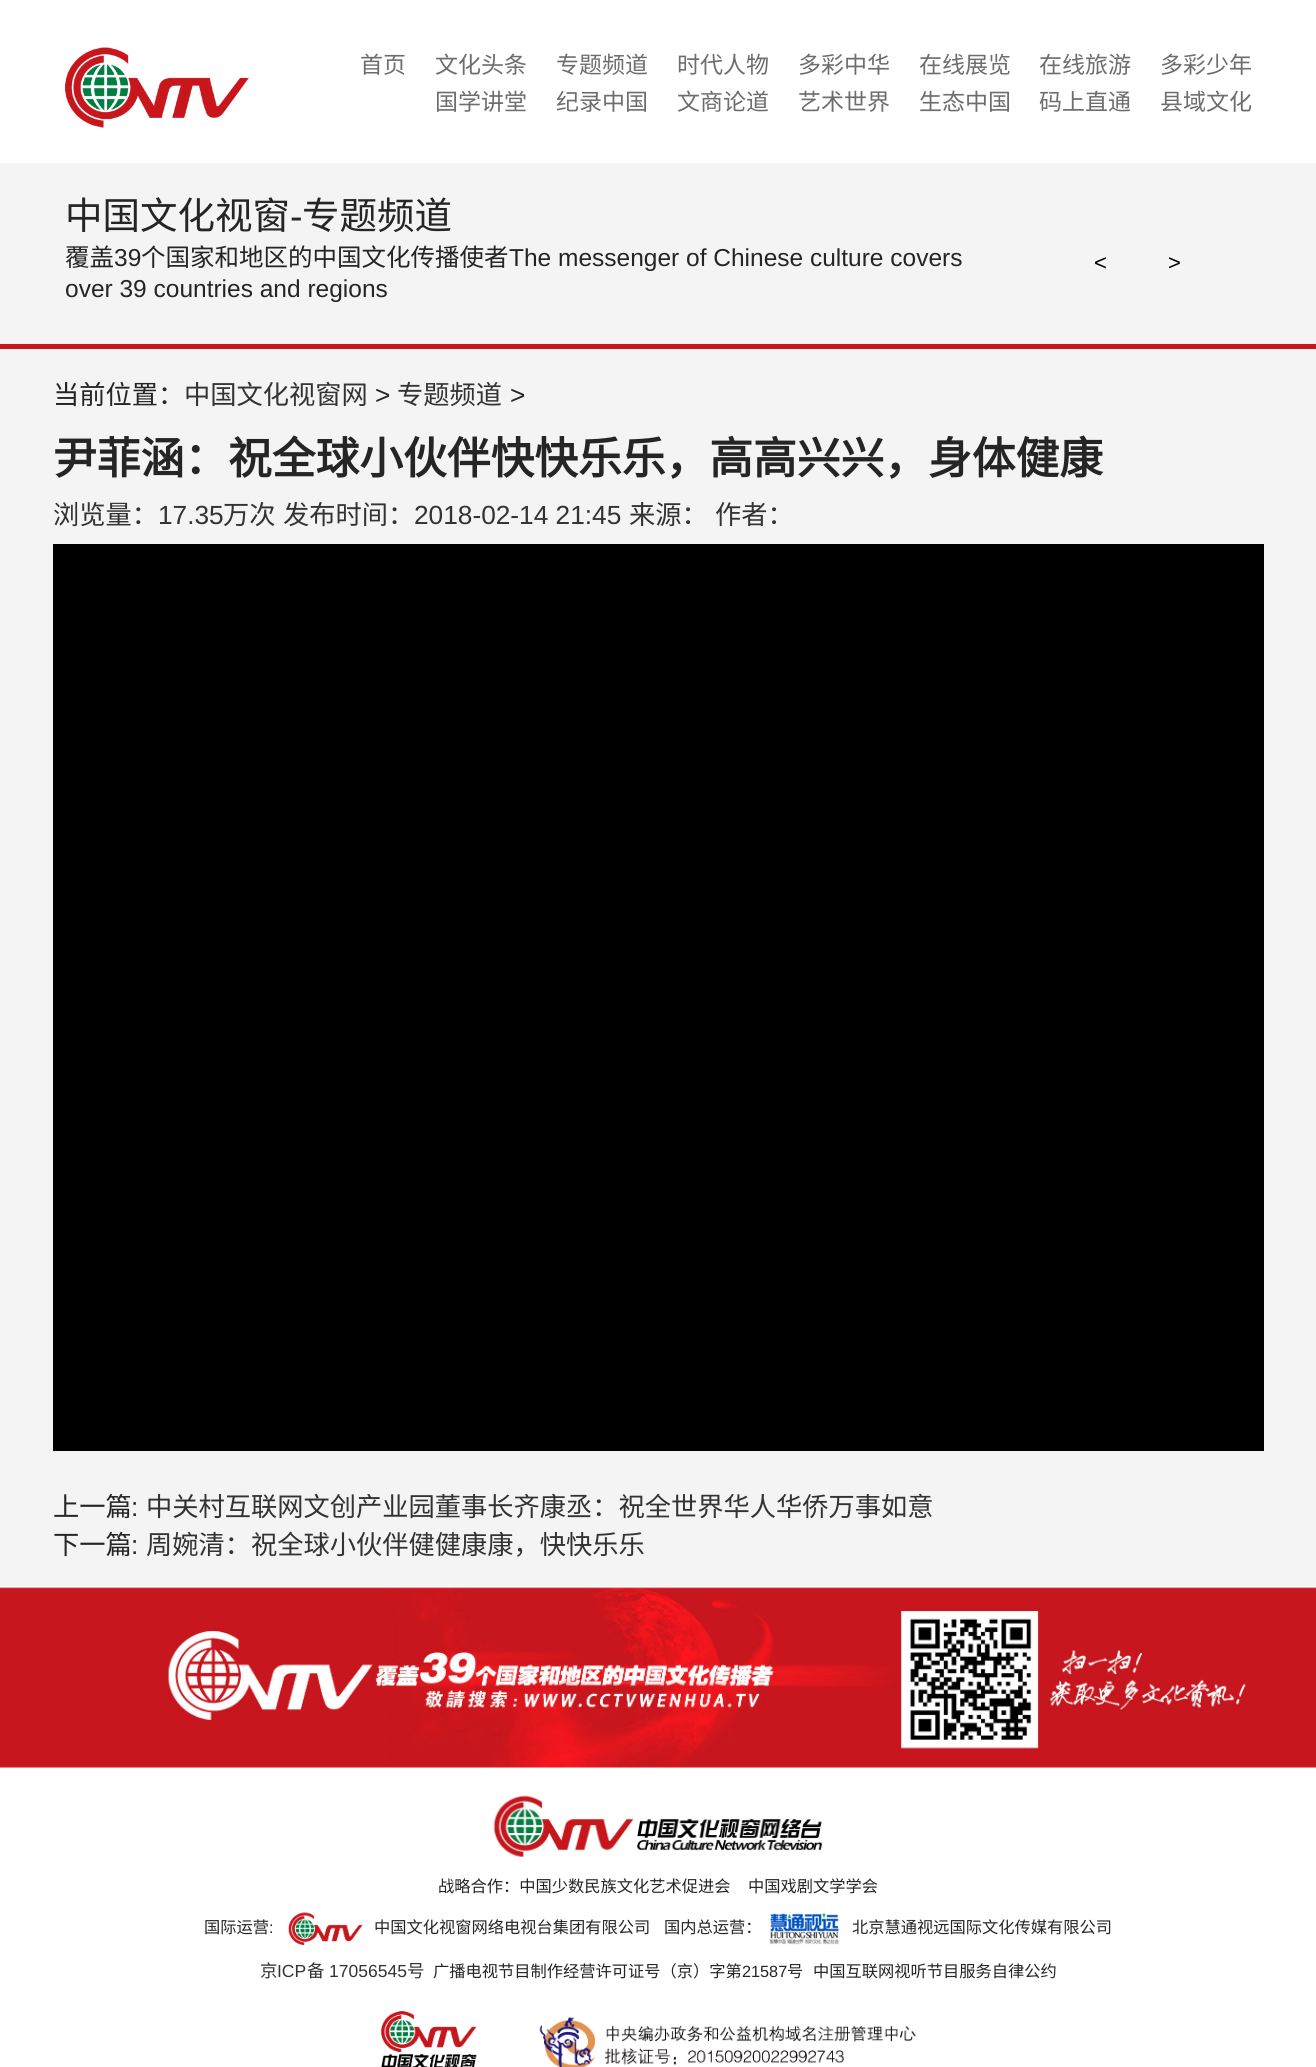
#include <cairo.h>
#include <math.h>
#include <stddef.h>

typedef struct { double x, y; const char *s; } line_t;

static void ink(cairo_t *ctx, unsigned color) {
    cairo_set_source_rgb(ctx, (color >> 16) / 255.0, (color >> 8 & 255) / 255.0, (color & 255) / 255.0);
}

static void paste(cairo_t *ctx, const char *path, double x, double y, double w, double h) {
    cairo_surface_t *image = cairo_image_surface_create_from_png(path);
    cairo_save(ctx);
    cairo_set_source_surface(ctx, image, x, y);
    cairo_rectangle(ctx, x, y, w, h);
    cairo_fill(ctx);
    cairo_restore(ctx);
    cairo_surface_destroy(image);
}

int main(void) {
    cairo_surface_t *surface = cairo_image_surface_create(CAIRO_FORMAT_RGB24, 1316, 2067);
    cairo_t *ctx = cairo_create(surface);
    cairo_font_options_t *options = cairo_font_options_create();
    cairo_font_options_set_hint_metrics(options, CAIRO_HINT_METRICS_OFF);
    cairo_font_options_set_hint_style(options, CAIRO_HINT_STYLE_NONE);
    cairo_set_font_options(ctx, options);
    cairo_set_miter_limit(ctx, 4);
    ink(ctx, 0xF4F4F4);
    cairo_paint(ctx);
    ink(ctx, 0xFFFFFF);
    cairo_rectangle(ctx, 0, 0, 1316, 163);
    cairo_fill(ctx);
    paste(ctx, "media/1.png", 65, 47, 184, 81);
    cairo_select_font_face(ctx, "Noto Sans CJK SC", CAIRO_FONT_SLANT_NORMAL, CAIRO_FONT_WEIGHT_NORMAL);
    cairo_set_font_size(ctx, 23);
    ink(ctx, 0x6E6D6D);
    {
        static const line_t items[] = {
            {360, 73, "首页"},
            {435, 73, "文化头条"},
            {556, 73, "专题频道"},
            {677, 73, "时代人物"},
            {798, 73, "多彩中华"},
            {919, 73, "在线展览"},
            {1039, 73, "在线旅游"},
            {1160, 73, "多彩少年"},
            {435, 110, "国学讲堂"},
            {556, 110, "纪录中国"},
            {677, 110, "文商论道"},
            {798, 110, "艺术世界"},
            {919, 110, "生态中国"},
            {1039, 110, "码上直通"},
            {1160, 110, "县域文化"},
        };
        for (size_t i = 0; i < sizeof items / sizeof *items; i++) {
            cairo_move_to(ctx, items[i].x, items[i].y);
            cairo_show_text(ctx, items[i].s);
        }
    }
    cairo_set_font_size(ctx, 37.5);
    ink(ctx, 0x252525);
    cairo_move_to(ctx, 65, 229);
    cairo_show_text(ctx, "中国文化视窗");
    cairo_select_font_face(ctx, "Liberation Sans", CAIRO_FONT_SLANT_NORMAL, CAIRO_FONT_WEIGHT_NORMAL);
    cairo_move_to(ctx, 290, 229);
    cairo_show_text(ctx, "-");
    cairo_select_font_face(ctx, "Noto Sans CJK SC", CAIRO_FONT_SLANT_NORMAL, CAIRO_FONT_WEIGHT_NORMAL);
    cairo_move_to(ctx, 302, 229);
    cairo_show_text(ctx, "专题频道");
    cairo_set_font_size(ctx, 24.5);
    cairo_move_to(ctx, 65, 266);
    cairo_show_text(ctx, "覆盖");
    cairo_select_font_face(ctx, "Liberation Sans", CAIRO_FONT_SLANT_NORMAL, CAIRO_FONT_WEIGHT_NORMAL);
    cairo_move_to(ctx, 114, 266);
    cairo_show_text(ctx, "39");
    cairo_select_font_face(ctx, "Noto Sans CJK SC", CAIRO_FONT_SLANT_NORMAL, CAIRO_FONT_WEIGHT_NORMAL);
    cairo_move_to(ctx, 141, 266);
    cairo_show_text(ctx, "个国家和地区的中国文化传播使者");
    cairo_select_font_face(ctx, "Liberation Sans", CAIRO_FONT_SLANT_NORMAL, CAIRO_FONT_WEIGHT_NORMAL);
    cairo_move_to(ctx, 509, 266);
    cairo_show_text(ctx, "The messenger of Chinese culture covers");
    cairo_move_to(ctx, 65, 297);
    cairo_show_text(ctx, "over 39 countries and regions");
    cairo_set_font_size(ctx, 22);
    ink(ctx, 0x000000);
    cairo_move_to(ctx, 1094, 270);
    cairo_show_text(ctx, "<");
    cairo_move_to(ctx, 1168, 270);
    cairo_show_text(ctx, ">");
    ink(ctx, 0xC7161C);
    cairo_rectangle(ctx, 0, 344, 1316, 5);
    cairo_fill(ctx);
    cairo_select_font_face(ctx, "Noto Sans CJK SC", CAIRO_FONT_SLANT_NORMAL, CAIRO_FONT_WEIGHT_NORMAL);
    cairo_set_font_size(ctx, 26.25);
    ink(ctx, 0x252525);
    cairo_move_to(ctx, 53, 404);
    cairo_show_text(ctx, "当前位置：");
    ink(ctx, 0x333333);
    cairo_move_to(ctx, 184, 404);
    cairo_show_text(ctx, "中国文化视窗网");
    cairo_select_font_face(ctx, "Liberation Sans", CAIRO_FONT_SLANT_NORMAL, CAIRO_FONT_WEIGHT_NORMAL);
    ink(ctx, 0x252525);
    cairo_move_to(ctx, 375, 404);
    cairo_show_text(ctx, ">");
    cairo_select_font_face(ctx, "Noto Sans CJK SC", CAIRO_FONT_SLANT_NORMAL, CAIRO_FONT_WEIGHT_NORMAL);
    ink(ctx, 0x333333);
    cairo_move_to(ctx, 397, 404);
    cairo_show_text(ctx, "专题频道");
    cairo_select_font_face(ctx, "Liberation Sans", CAIRO_FONT_SLANT_NORMAL, CAIRO_FONT_WEIGHT_NORMAL);
    ink(ctx, 0x252525);
    cairo_move_to(ctx, 510, 404);
    cairo_show_text(ctx, ">");
    cairo_select_font_face(ctx, "Noto Sans CJK SC", CAIRO_FONT_SLANT_NORMAL, CAIRO_FONT_WEIGHT_BOLD);
    cairo_set_font_size(ctx, 43.75);
    cairo_move_to(ctx, 53, 474);
    cairo_show_text(ctx, "尹菲涵：祝全球小伙伴快快乐乐，高高兴兴，身体健康");
    cairo_select_font_face(ctx, "Noto Sans CJK SC", CAIRO_FONT_SLANT_NORMAL, CAIRO_FONT_WEIGHT_NORMAL);
    cairo_set_font_size(ctx, 26.25);
    ink(ctx, 0x333333);
    cairo_move_to(ctx, 53, 524);
    cairo_show_text(ctx, "浏览量：");
    cairo_select_font_face(ctx, "Liberation Sans", CAIRO_FONT_SLANT_NORMAL, CAIRO_FONT_WEIGHT_NORMAL);
    cairo_move_to(ctx, 158, 524);
    cairo_show_text(ctx, "17.35");
    cairo_select_font_face(ctx, "Noto Sans CJK SC", CAIRO_FONT_SLANT_NORMAL, CAIRO_FONT_WEIGHT_NORMAL);
    cairo_move_to(ctx, 223, 524);
    cairo_show_text(ctx, "万次");
    cairo_move_to(ctx, 283, 524);
    cairo_show_text(ctx, "发布时间：");
    cairo_select_font_face(ctx, "Liberation Sans", CAIRO_FONT_SLANT_NORMAL, CAIRO_FONT_WEIGHT_NORMAL);
    cairo_move_to(ctx, 414, 524);
    cairo_show_text(ctx, "2018-02-14 21:45");
    cairo_select_font_face(ctx, "Noto Sans CJK SC", CAIRO_FONT_SLANT_NORMAL, CAIRO_FONT_WEIGHT_NORMAL);
    cairo_move_to(ctx, 629, 524);
    cairo_show_text(ctx, "来源：");
    cairo_move_to(ctx, 715, 524);
    cairo_show_text(ctx, "作者：");
    ink(ctx, 0x000000);
    cairo_rectangle(ctx, 53, 544, 1211, 907);
    cairo_fill(ctx);
    ink(ctx, 0x252525);
    cairo_move_to(ctx, 53, 1516);
    cairo_show_text(ctx, "上一篇");
    cairo_select_font_face(ctx, "Liberation Sans", CAIRO_FONT_SLANT_NORMAL, CAIRO_FONT_WEIGHT_NORMAL);
    cairo_move_to(ctx, 131, 1516);
    cairo_show_text(ctx, ":");
    cairo_select_font_face(ctx, "Noto Sans CJK SC", CAIRO_FONT_SLANT_NORMAL, CAIRO_FONT_WEIGHT_NORMAL);
    ink(ctx, 0x333333);
    cairo_move_to(ctx, 146, 1516);
    cairo_show_text(ctx, "中关村互联网文创产业园董事长齐康丞：祝全世界华人华侨万事如意");
    ink(ctx, 0x252525);
    cairo_move_to(ctx, 53, 1554);
    cairo_show_text(ctx, "下一篇");
    cairo_select_font_face(ctx, "Liberation Sans", CAIRO_FONT_SLANT_NORMAL, CAIRO_FONT_WEIGHT_NORMAL);
    cairo_move_to(ctx, 131, 1554);
    cairo_show_text(ctx, ":");
    cairo_select_font_face(ctx, "Noto Sans CJK SC", CAIRO_FONT_SLANT_NORMAL, CAIRO_FONT_WEIGHT_NORMAL);
    ink(ctx, 0x333333);
    cairo_move_to(ctx, 146, 1554);
    cairo_show_text(ctx, "周婉清：祝全球小伙伴健健康康，快快乐乐");
    ink(ctx, 0xFFFFFF);
    cairo_rectangle(ctx, 0, 1586, 1316, 481);
    cairo_fill(ctx);
    paste(ctx, "media/2.png", 0, 1586, 1316, 182);
    paste(ctx, "media/3.png", 493, 1795, 329, 62);
    cairo_set_font_size(ctx, 16.25);
    ink(ctx, 0x252525);
    {
        static const line_t items[] = {
            {438, 1892, "战略合作：中国少数民族文化艺术促进会"},
            {748, 1892, "中国戏剧文学学会"},
            {204, 1933, "国际运营"},
        };
        for (size_t i = 0; i < sizeof items / sizeof *items; i++) {
            cairo_move_to(ctx, items[i].x, items[i].y);
            cairo_show_text(ctx, items[i].s);
        }
    }
    cairo_select_font_face(ctx, "Liberation Sans", CAIRO_FONT_SLANT_NORMAL, CAIRO_FONT_WEIGHT_NORMAL);
    cairo_move_to(ctx, 269, 1933);
    cairo_show_text(ctx, ":");
    paste(ctx, "media/4.png", 288, 1912, 75, 33);
    cairo_select_font_face(ctx, "Noto Sans CJK SC", CAIRO_FONT_SLANT_NORMAL, CAIRO_FONT_WEIGHT_NORMAL);
    cairo_move_to(ctx, 374, 1933);
    cairo_show_text(ctx, "中国文化视窗网络电视台集团有限公司");
    cairo_move_to(ctx, 664, 1933);
    cairo_show_text(ctx, "国内总运营：");
    paste(ctx, "media/5.png", 769, 1913, 71, 32);
    cairo_move_to(ctx, 852, 1933);
    cairo_show_text(ctx, "北京慧通视远国际文化传媒有限公司");
    cairo_set_font_size(ctx, 17.5);
    ink(ctx, 0x333333);
    cairo_move_to(ctx, 260, 1977);
    cairo_show_text(ctx, "京");
    cairo_select_font_face(ctx, "Liberation Sans", CAIRO_FONT_SLANT_NORMAL, CAIRO_FONT_WEIGHT_NORMAL);
    cairo_move_to(ctx, 277, 1977);
    cairo_show_text(ctx, "ICP");
    cairo_select_font_face(ctx, "Noto Sans CJK SC", CAIRO_FONT_SLANT_NORMAL, CAIRO_FONT_WEIGHT_NORMAL);
    cairo_move_to(ctx, 307, 1977);
    cairo_show_text(ctx, "备");
    cairo_select_font_face(ctx, "Liberation Sans", CAIRO_FONT_SLANT_NORMAL, CAIRO_FONT_WEIGHT_NORMAL);
    cairo_move_to(ctx, 329, 1977);
    cairo_show_text(ctx, "17056545");
    cairo_select_font_face(ctx, "Noto Sans CJK SC", CAIRO_FONT_SLANT_NORMAL, CAIRO_FONT_WEIGHT_NORMAL);
    cairo_move_to(ctx, 407, 1977);
    cairo_show_text(ctx, "号");
    cairo_set_font_size(ctx, 16.25);
    ink(ctx, 0x252525);
    cairo_move_to(ctx, 433, 1977);
    cairo_show_text(ctx, "广播电视节目制作经营许可证号（京）字第");
    cairo_select_font_face(ctx, "Liberation Sans", CAIRO_FONT_SLANT_NORMAL, CAIRO_FONT_WEIGHT_NORMAL);
    cairo_move_to(ctx, 742, 1977);
    cairo_show_text(ctx, "21587");
    cairo_select_font_face(ctx, "Noto Sans CJK SC", CAIRO_FONT_SLANT_NORMAL, CAIRO_FONT_WEIGHT_NORMAL);
    cairo_move_to(ctx, 787, 1977);
    cairo_show_text(ctx, "号");
    cairo_move_to(ctx, 813, 1977);
    cairo_show_text(ctx, "中国互联网视听节目服务自律公约");
    paste(ctx, "media/6.png", 380, 2011, 97, 56);
    paste(ctx, "media/7.png", 539, 2016, 377, 51);
    cairo_surface_write_to_png(surface, "image.png");
    cairo_font_options_destroy(options);
    cairo_destroy(ctx);
    cairo_surface_destroy(surface);
    return 0;
}
